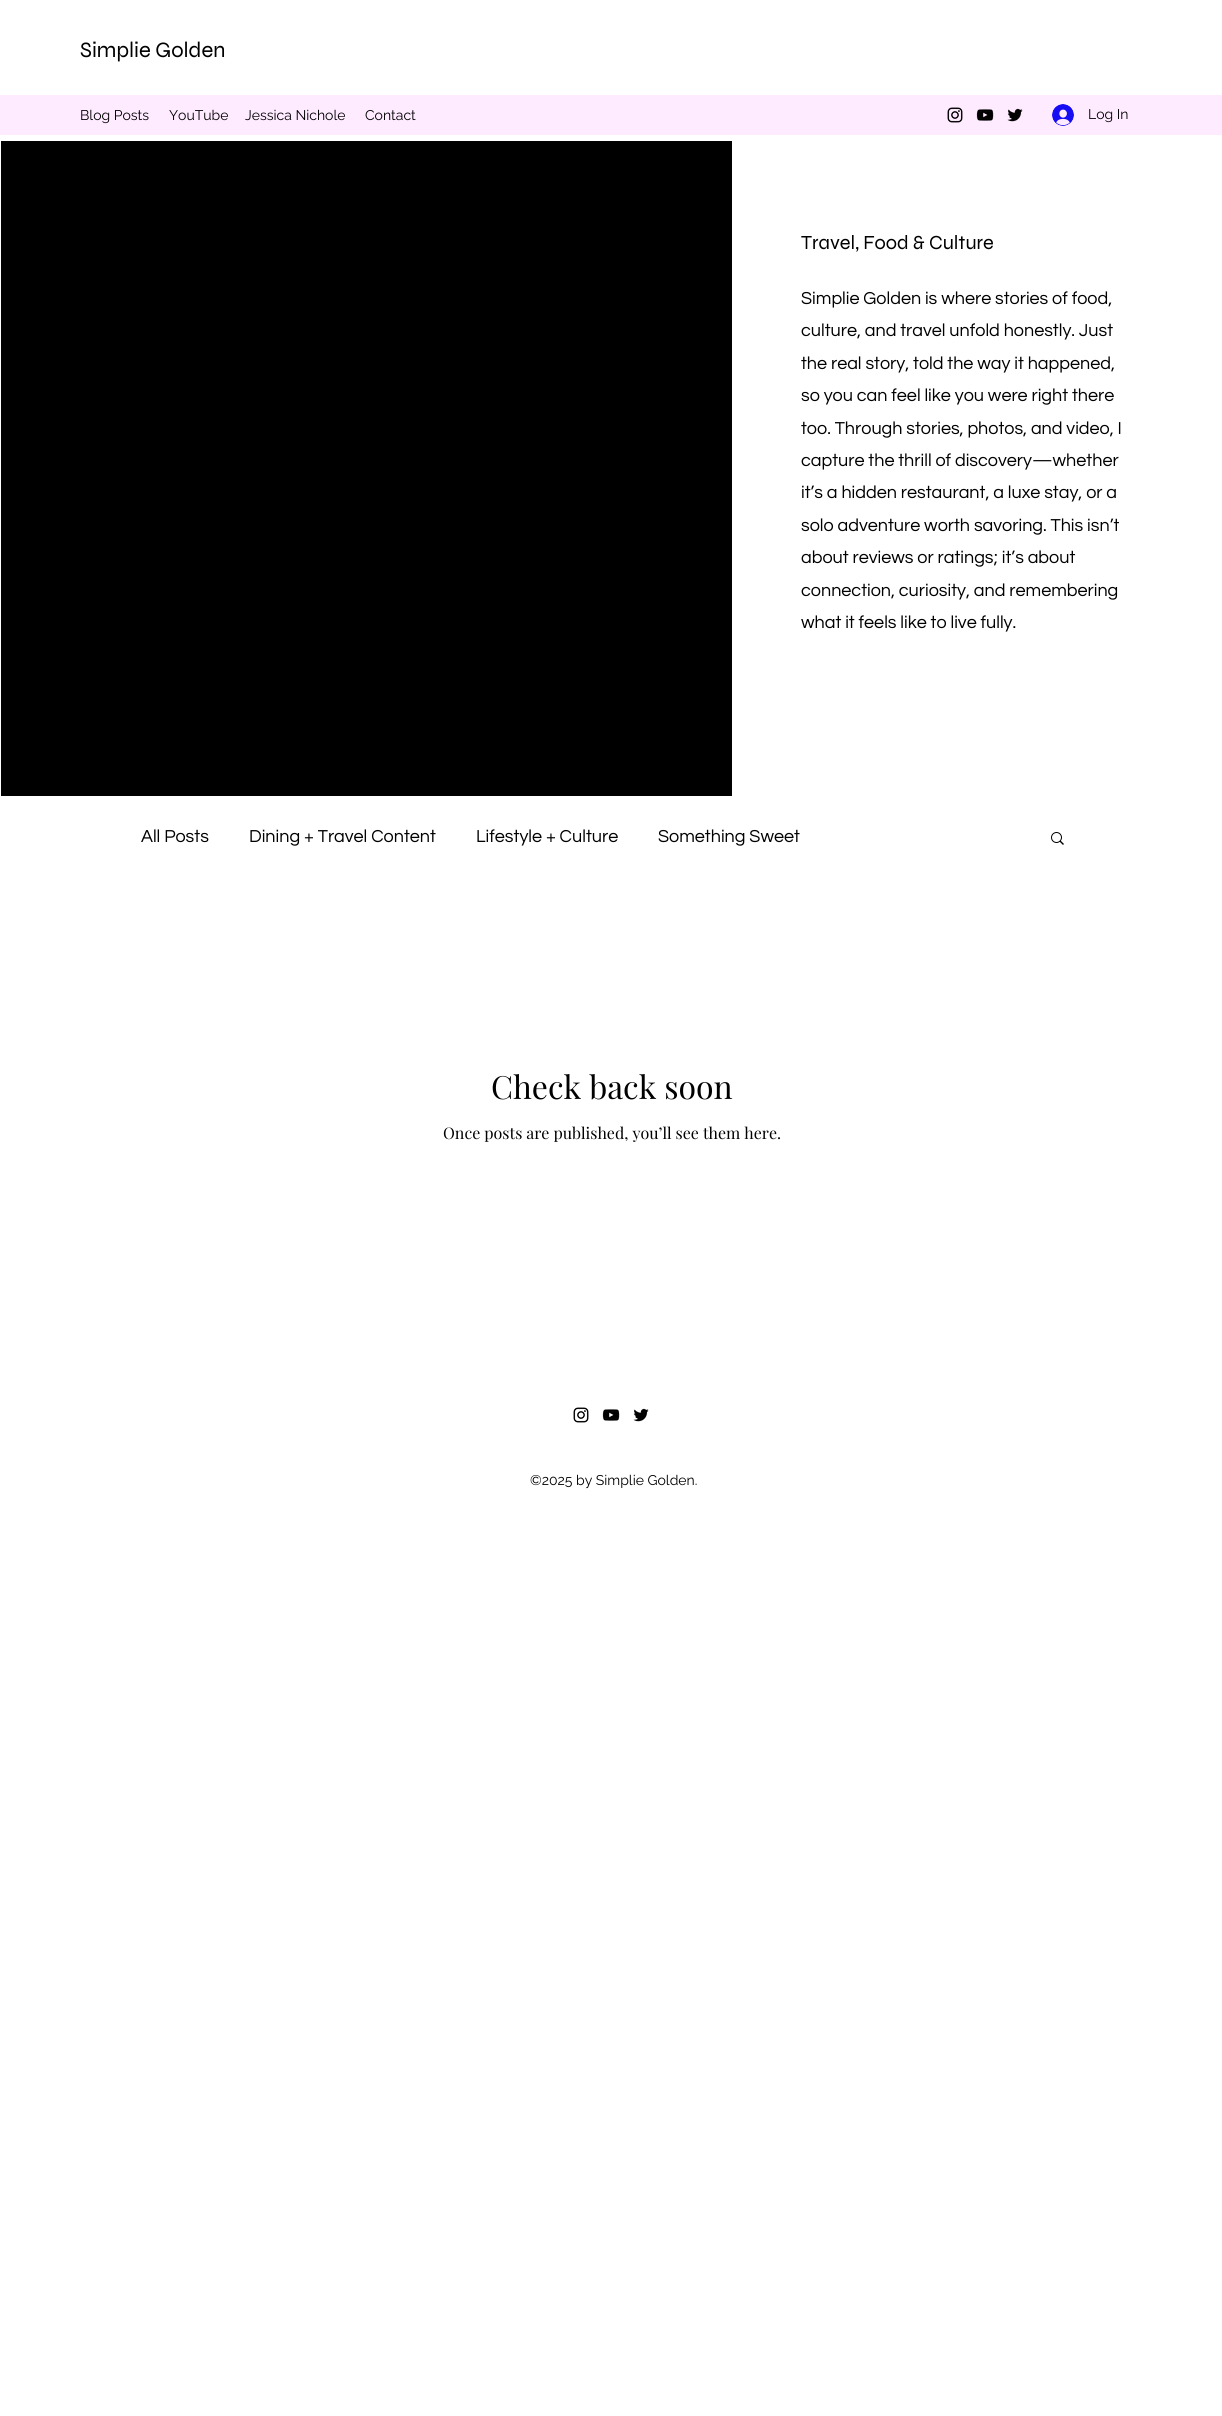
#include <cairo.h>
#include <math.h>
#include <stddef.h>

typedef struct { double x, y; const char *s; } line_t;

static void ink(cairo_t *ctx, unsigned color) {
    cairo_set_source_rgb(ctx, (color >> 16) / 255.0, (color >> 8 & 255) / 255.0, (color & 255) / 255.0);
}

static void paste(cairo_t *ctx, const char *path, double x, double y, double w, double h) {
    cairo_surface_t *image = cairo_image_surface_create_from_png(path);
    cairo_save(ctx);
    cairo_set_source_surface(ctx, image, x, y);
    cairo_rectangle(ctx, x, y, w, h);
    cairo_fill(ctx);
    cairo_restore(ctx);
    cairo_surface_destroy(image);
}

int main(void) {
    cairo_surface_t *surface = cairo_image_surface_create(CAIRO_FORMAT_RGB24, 1222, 2416);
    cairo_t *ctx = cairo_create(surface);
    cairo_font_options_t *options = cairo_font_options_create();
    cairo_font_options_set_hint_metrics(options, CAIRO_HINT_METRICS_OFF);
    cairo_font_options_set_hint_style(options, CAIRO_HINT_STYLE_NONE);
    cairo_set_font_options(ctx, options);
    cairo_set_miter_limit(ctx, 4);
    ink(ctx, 0xFFFFFF);
    cairo_paint(ctx);
    cairo_select_font_face(ctx, "Syne", CAIRO_FONT_SLANT_NORMAL, CAIRO_FONT_WEIGHT_NORMAL);
    cairo_set_font_size(ctx, 22);
    ink(ctx, 0x000000);
    cairo_move_to(ctx, 80, 57);
    cairo_show_text(ctx, "Simplie Golden");
    ink(ctx, 0xFFEBFF);
    cairo_rectangle(ctx, 0, 95, 1222, 40);
    cairo_fill(ctx);
    cairo_select_font_face(ctx, "Raleway", CAIRO_FONT_SLANT_NORMAL, CAIRO_FONT_WEIGHT_NORMAL);
    cairo_set_font_size(ctx, 14);
    ink(ctx, 0x000000);
    {
        static const line_t items[] = {
            {80, 120, "Blog Posts"},
            {169, 120, "YouTube"},
            {245, 120, "Jessica Nichole"},
            {365, 120, "Contact"},
        };
        for (size_t i = 0; i < sizeof items / sizeof *items; i++) {
            cairo_move_to(ctx, items[i].x, items[i].y);
            cairo_show_text(ctx, items[i].s);
        }
    }
    paste(ctx, "media/1.png", 947, 107, 16, 16);
    paste(ctx, "media/2.png", 976, 109, 18, 12);
    paste(ctx, "media/3.png", 1007, 108, 16, 14);
    paste(ctx, "media/4.png", 1052, 104, 22, 22);
    cairo_move_to(ctx, 1088, 119);
    cairo_show_text(ctx, "Log In");
    cairo_rectangle(ctx, 1, 141, 731, 655);
    cairo_fill(ctx);
    cairo_select_font_face(ctx, "Syne", CAIRO_FONT_SLANT_NORMAL, CAIRO_FONT_WEIGHT_NORMAL);
    cairo_set_font_size(ctx, 20);
    cairo_move_to(ctx, 801, 249);
    cairo_show_text(ctx, "Travel, Food & Culture");
    cairo_select_font_face(ctx, "Questrial", CAIRO_FONT_SLANT_NORMAL, CAIRO_FONT_WEIGHT_NORMAL);
    cairo_set_font_size(ctx, 18);
    {
        static const line_t items[] = {
            {801, 304, "Simplie Golden is where stories of food,"},
            {801, 336, "culture, and travel unfold honestly. Just"},
            {801, 369, "the real story, told the way it happened,"},
            {801, 401, "so you can feel like you were right there"},
            {801, 434, "too. Through stories, photos, and video, I"},
            {801, 466, "capture the thrill of discovery—whether"},
            {801, 498, "it’s a hidden restaurant, a luxe stay, or a"},
            {801, 531, "solo adventure worth savoring. This isn’t"},
            {801, 563, "about reviews or ratings; it’s about"},
            {801, 596, "connection, curiosity, and remembering"},
            {801, 628, "what it feels like to live fully."},
            {141, 842, "All Posts"},
            {249, 842, "Dining + Travel Content"},
            {476, 842, "Lifestyle + Culture"},
            {658, 842, "Something Sweet"},
        };
        for (size_t i = 0; i < sizeof items / sizeof *items; i++) {
            cairo_move_to(ctx, items[i].x, items[i].y);
            cairo_show_text(ctx, items[i].s);
        }
    }
    paste(ctx, "media/5.png", 1051, 832, 13, 13);
    cairo_select_font_face(ctx, "Playfair Display", CAIRO_FONT_SLANT_NORMAL, CAIRO_FONT_WEIGHT_NORMAL);
    cairo_set_font_size(ctx, 32);
    cairo_move_to(ctx, 491, 1099);
    cairo_show_text(ctx, "Check back soon");
    cairo_set_font_size(ctx, 16);
    cairo_move_to(ctx, 443, 1139);
    cairo_show_text(ctx, "Once posts are published, you’ll see them here.");
    paste(ctx, "media/6.png", 573, 1407, 16, 16);
    paste(ctx, "media/7.png", 602, 1409, 18, 12);
    paste(ctx, "media/8.png", 633, 1408, 16, 14);
    cairo_select_font_face(ctx, "Raleway", CAIRO_FONT_SLANT_NORMAL, CAIRO_FONT_WEIGHT_NORMAL);
    cairo_set_font_size(ctx, 14);
    cairo_move_to(ctx, 530, 1485);
    cairo_show_text(ctx, "©2025 by Simplie Golden.");
    cairo_surface_write_to_png(surface, "image.png");
    cairo_font_options_destroy(options);
    cairo_destroy(ctx);
    cairo_surface_destroy(surface);
    return 0;
}
